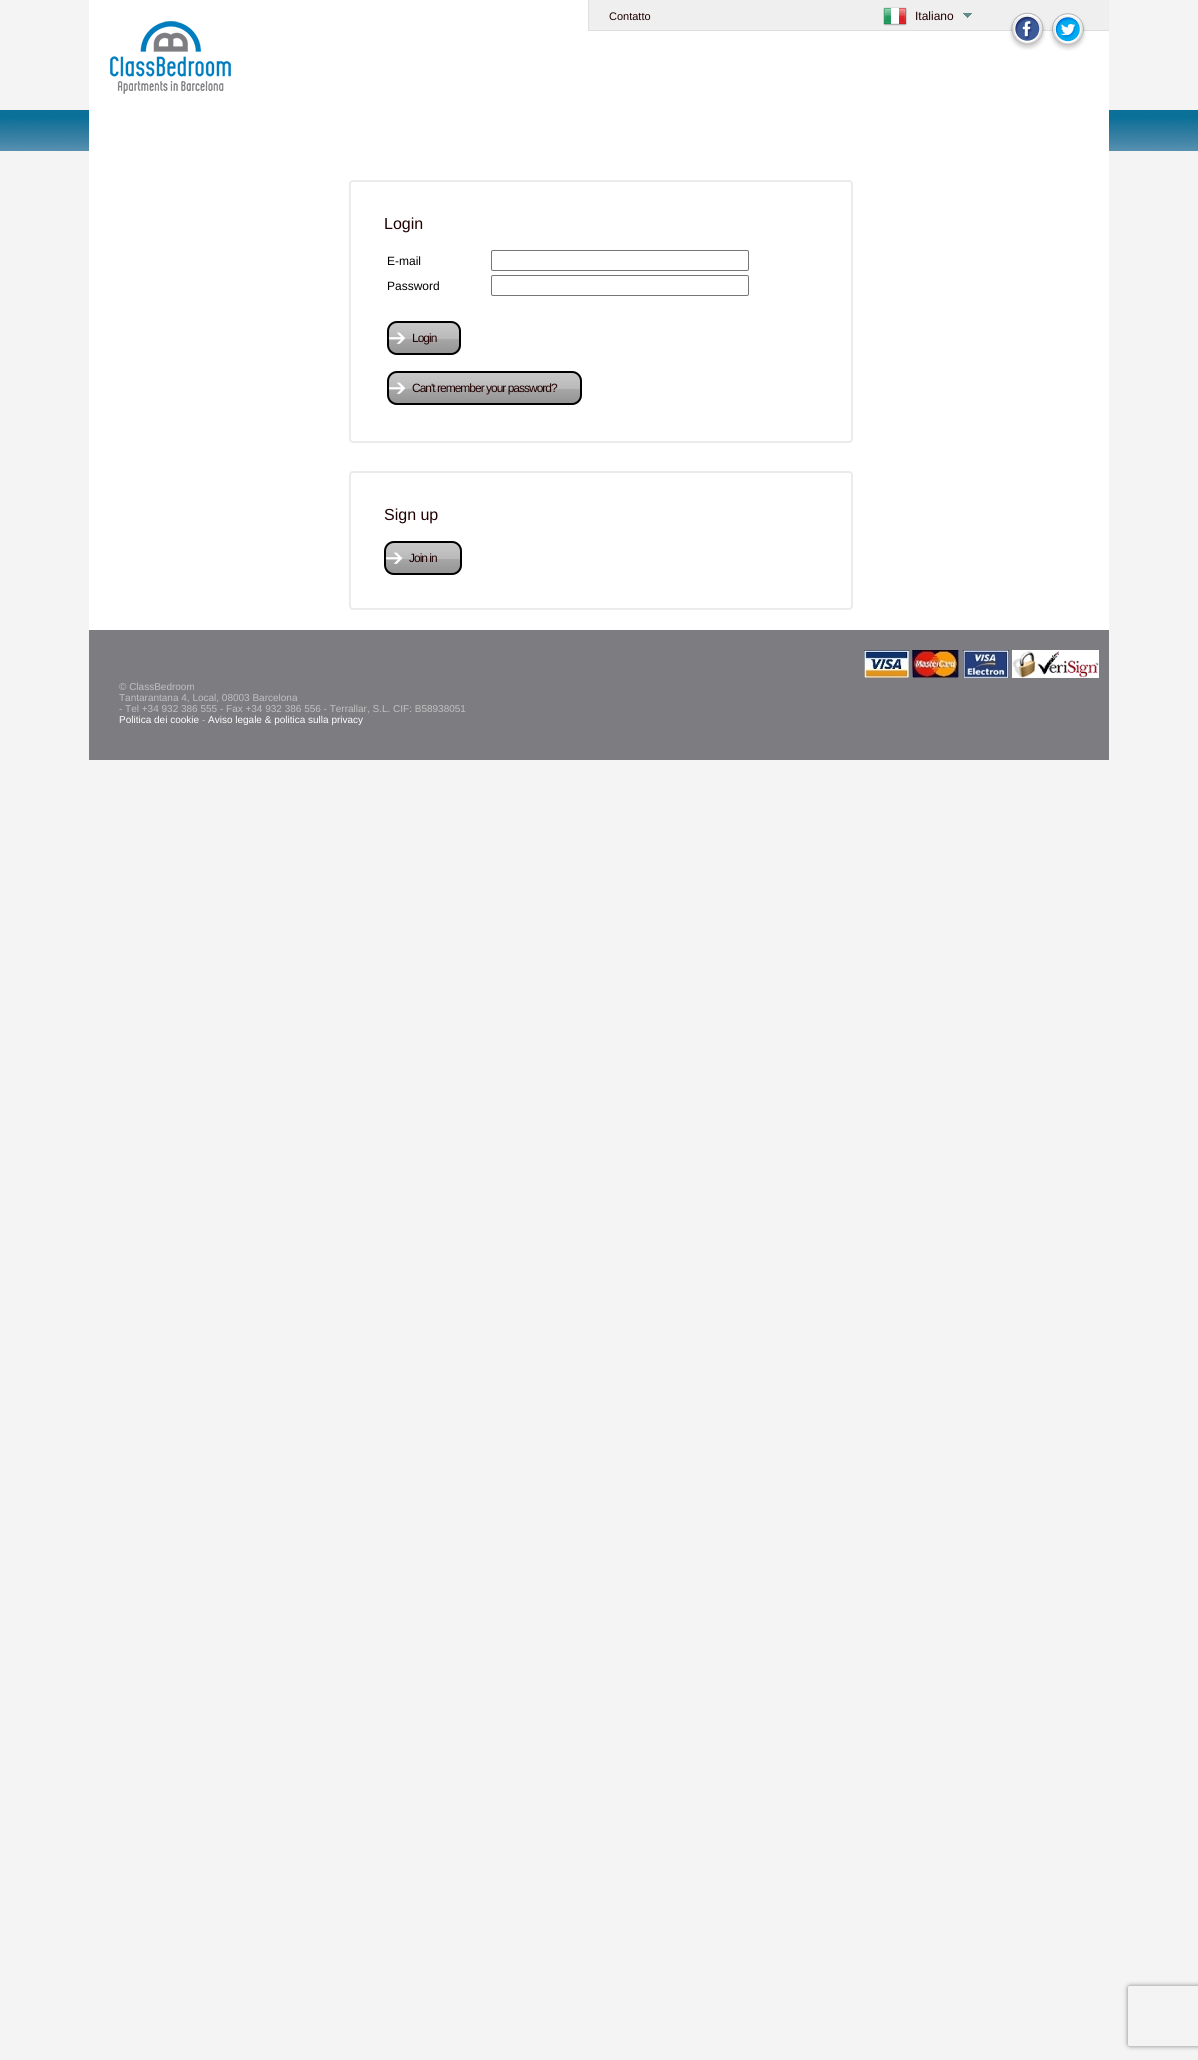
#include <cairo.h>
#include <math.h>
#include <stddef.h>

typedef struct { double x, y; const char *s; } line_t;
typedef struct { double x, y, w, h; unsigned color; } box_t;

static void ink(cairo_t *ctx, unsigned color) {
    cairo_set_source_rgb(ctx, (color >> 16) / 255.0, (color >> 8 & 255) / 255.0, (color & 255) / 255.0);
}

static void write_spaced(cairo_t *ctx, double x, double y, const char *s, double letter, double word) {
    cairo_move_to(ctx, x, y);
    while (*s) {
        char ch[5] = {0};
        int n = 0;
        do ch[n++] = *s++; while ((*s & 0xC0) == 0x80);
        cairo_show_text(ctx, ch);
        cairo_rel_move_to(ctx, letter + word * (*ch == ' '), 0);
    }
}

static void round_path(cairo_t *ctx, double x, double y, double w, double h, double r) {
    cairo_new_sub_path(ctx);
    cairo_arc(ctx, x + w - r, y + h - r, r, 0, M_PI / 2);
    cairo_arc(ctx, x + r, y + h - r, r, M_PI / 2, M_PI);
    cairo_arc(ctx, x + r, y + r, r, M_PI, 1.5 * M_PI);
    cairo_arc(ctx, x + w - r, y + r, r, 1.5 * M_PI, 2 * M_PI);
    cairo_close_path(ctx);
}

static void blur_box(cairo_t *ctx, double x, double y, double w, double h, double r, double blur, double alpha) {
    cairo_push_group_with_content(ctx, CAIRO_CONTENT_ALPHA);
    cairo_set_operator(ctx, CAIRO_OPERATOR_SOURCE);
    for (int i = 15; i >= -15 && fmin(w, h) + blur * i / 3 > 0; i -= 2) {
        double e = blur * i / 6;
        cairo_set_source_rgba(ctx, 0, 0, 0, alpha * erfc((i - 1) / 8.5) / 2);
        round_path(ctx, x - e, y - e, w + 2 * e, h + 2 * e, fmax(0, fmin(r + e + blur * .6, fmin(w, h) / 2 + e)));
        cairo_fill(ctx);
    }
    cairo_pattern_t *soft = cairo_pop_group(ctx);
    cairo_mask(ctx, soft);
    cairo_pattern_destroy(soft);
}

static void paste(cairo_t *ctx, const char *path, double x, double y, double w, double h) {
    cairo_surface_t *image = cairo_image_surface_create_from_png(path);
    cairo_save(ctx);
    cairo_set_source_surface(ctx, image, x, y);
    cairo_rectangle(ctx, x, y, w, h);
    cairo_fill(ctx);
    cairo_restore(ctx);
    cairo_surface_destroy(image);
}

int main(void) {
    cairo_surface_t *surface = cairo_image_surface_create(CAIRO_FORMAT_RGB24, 1198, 2060);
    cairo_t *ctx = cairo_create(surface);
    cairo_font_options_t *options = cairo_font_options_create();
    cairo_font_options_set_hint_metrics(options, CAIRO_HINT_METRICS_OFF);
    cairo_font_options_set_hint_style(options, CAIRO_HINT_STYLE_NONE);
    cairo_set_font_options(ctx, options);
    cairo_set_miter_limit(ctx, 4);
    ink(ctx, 0xF4F4F4);
    cairo_paint(ctx);
    paste(ctx, "media/1.png", 0, 110, 1198, 41);
    {
        static const box_t items[] = {
            {89, 0, 1020, 630, 0xFFFFFF},
            {869, 0, 240, 30, 0xEFEFEF},
            {869, 30, 240, 1, 0xDFDFDF},
        };
        for (size_t i = 0; i < sizeof items / sizeof *items; i++) {
            ink(ctx, items[i].color);
            cairo_rectangle(ctx, items[i].x, items[i].y, items[i].w, items[i].h);
            cairo_fill(ctx);
        }
    }
    paste(ctx, "media/2.png", 1009, 12, 37, 38);
    paste(ctx, "media/3.png", 1049, 13, 37, 38);
    {
        static const box_t items[] = {
            {589, 0, 280, 30, 0xEFEFEF},
            {588, 30, 281, 1, 0xDFDFDF},
            {588, 0, 1, 31, 0xDFDFDF},
        };
        for (size_t i = 0; i < sizeof items / sizeof *items; i++) {
            ink(ctx, items[i].color);
            cairo_rectangle(ctx, items[i].x, items[i].y, items[i].w, items[i].h);
            cairo_fill(ctx);
        }
    }
    cairo_select_font_face(ctx, "Liberation Sans", CAIRO_FONT_SLANT_NORMAL, CAIRO_FONT_WEIGHT_NORMAL);
    cairo_set_font_size(ctx, 11);
    ink(ctx, 0x200000);
    cairo_move_to(ctx, 609, 20);
    cairo_show_text(ctx, "Contatto");
    paste(ctx, "media/4.png", 883, 7, 24, 19);
    cairo_set_font_size(ctx, 12);
    cairo_move_to(ctx, 915, 20);
    cairo_show_text(ctx, "Italiano");
    paste(ctx, "media/5.png", 963, 13, 9, 5);
    paste(ctx, "media/6.png", 110, 21, 121, 73);
    round_path(ctx, 350, 181, 502, 261, 3);
    ink(ctx, 0xEBEBEB);
    cairo_stroke(ctx);
    cairo_set_font_size(ctx, 16);
    ink(ctx, 0x200000);
    cairo_move_to(ctx, 384, 229);
    cairo_show_text(ctx, "Login");
    cairo_set_font_size(ctx, 12);
    ink(ctx, 0x000000);
    cairo_move_to(ctx, 387, 265);
    cairo_show_text(ctx, "E-mail");
    round_path(ctx, 491.5, 250.5, 257, 20, 1.5);
    ink(ctx, 0x767676);
    cairo_set_line_width(ctx, 1);
    cairo_stroke(ctx);
    ink(ctx, 0x000000);
    cairo_move_to(ctx, 387, 290);
    cairo_show_text(ctx, "Password");
    round_path(ctx, 491.5, 275.5, 257, 20, 1.5);
    ink(ctx, 0x767676);
    cairo_stroke(ctx);
    paste(ctx, "media/7.png", 389, 321, 72, 34);
    round_path(ctx, 388, 322, 72, 32, 9);
    ink(ctx, 0x000000);
    cairo_set_line_width(ctx, 2);
    cairo_stroke(ctx);
    ink(ctx, 0x200000);
    write_spaced(ctx, 412, 342, "Login", -1, 0);
    paste(ctx, "media/8.png", 389, 371, 193, 34);
    round_path(ctx, 388, 372, 193, 32, 9);
    ink(ctx, 0x000000);
    cairo_stroke(ctx);
    ink(ctx, 0x200000);
    write_spaced(ctx, 412, 392, "Can't remember your password?", -1, 0);
    round_path(ctx, 350, 472, 502, 137, 3);
    ink(ctx, 0xEBEBEB);
    cairo_stroke(ctx);
    cairo_set_font_size(ctx, 16);
    ink(ctx, 0x200000);
    cairo_move_to(ctx, 384, 520);
    cairo_show_text(ctx, "Sign up");
    paste(ctx, "media/9.png", 386, 541, 76, 34);
    round_path(ctx, 385, 542, 76, 32, 9);
    ink(ctx, 0x000000);
    cairo_stroke(ctx);
    cairo_set_font_size(ctx, 12);
    ink(ctx, 0x200000);
    write_spaced(ctx, 409, 562, "Join in", -1, 0);
    ink(ctx, 0x7D7C80);
    cairo_rectangle(ctx, 89, 630, 1020, 130);
    cairo_fill(ctx);
    paste(ctx, "media/10.png", 864, 650, 45, 28);
    paste(ctx, "media/11.png", 912, 650, 47, 28);
    paste(ctx, "media/12.png", 963, 650, 46, 28);
    paste(ctx, "media/13.png", 1012, 650, 87, 28);
    cairo_set_font_size(ctx, 10);
    ink(ctx, 0xC0C0C0);
    {
        static const line_t items[] = {
            {119, 690, "© ClassBedroom"},
            {119, 701, "Tantarantana 4, Local, 08003 Barcelona"},
            {119, 712, "- Tel +34 932 386 555 - Fax +34 932 386 556 - Terrallar, S.L. CIF: B58938051"},
        };
        for (size_t i = 0; i < sizeof items / sizeof *items; i++) {
            cairo_move_to(ctx, items[i].x, items[i].y);
            cairo_show_text(ctx, items[i].s);
        }
    }
    ink(ctx, 0xFFFFFF);
    cairo_move_to(ctx, 119, 723);
    cairo_show_text(ctx, "Politica dei cookie");
    ink(ctx, 0xC0C0C0);
    cairo_move_to(ctx, 202, 723);
    cairo_show_text(ctx, "-");
    ink(ctx, 0xFFFFFF);
    cairo_move_to(ctx, 208, 723);
    cairo_show_text(ctx, "Aviso legale & politica sulla privacy");
    cairo_save(ctx);
    cairo_set_fill_rule(ctx, CAIRO_FILL_RULE_EVEN_ODD);
    cairo_new_path(ctx);
    cairo_move_to(ctx, 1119, 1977);
    cairo_line_to(ctx, 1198, 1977);
    cairo_line_to(ctx, 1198, 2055);
    cairo_line_to(ctx, 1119, 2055);
    cairo_close_path(ctx);
    cairo_move_to(ctx, 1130, 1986);
    cairo_line_to(ctx, 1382, 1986);
    cairo_curve_to(ctx, 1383, 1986, 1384, 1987, 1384, 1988);
    cairo_line_to(ctx, 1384, 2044);
    cairo_curve_to(ctx, 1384, 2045, 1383, 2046, 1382, 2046);
    cairo_line_to(ctx, 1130, 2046);
    cairo_curve_to(ctx, 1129, 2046, 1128, 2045, 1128, 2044);
    cairo_line_to(ctx, 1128, 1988);
    cairo_curve_to(ctx, 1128, 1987, 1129, 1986, 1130, 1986);
    cairo_close_path(ctx);
    cairo_clip(ctx);
    ink(ctx, 0x808080);
    blur_box(ctx, 1128, 1986, 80, 60, 2, 2.5, 1);
    cairo_restore(ctx);
    cairo_surface_write_to_png(surface, "image.png");
    cairo_font_options_destroy(options);
    cairo_destroy(ctx);
    cairo_surface_destroy(surface);
    return 0;
}
